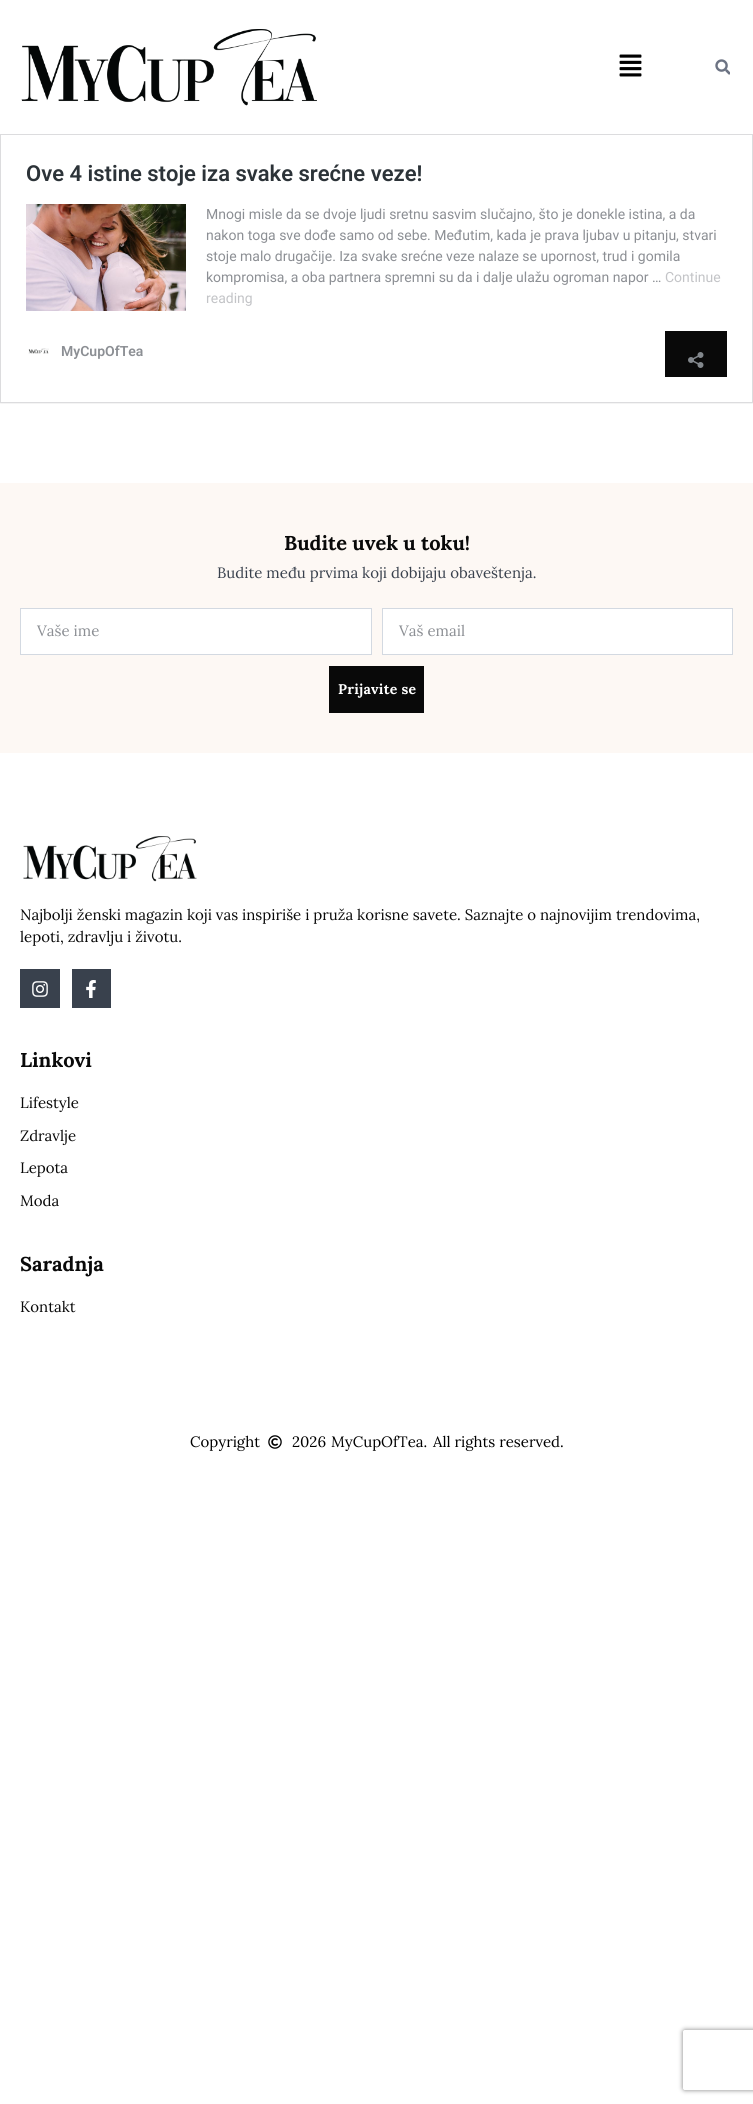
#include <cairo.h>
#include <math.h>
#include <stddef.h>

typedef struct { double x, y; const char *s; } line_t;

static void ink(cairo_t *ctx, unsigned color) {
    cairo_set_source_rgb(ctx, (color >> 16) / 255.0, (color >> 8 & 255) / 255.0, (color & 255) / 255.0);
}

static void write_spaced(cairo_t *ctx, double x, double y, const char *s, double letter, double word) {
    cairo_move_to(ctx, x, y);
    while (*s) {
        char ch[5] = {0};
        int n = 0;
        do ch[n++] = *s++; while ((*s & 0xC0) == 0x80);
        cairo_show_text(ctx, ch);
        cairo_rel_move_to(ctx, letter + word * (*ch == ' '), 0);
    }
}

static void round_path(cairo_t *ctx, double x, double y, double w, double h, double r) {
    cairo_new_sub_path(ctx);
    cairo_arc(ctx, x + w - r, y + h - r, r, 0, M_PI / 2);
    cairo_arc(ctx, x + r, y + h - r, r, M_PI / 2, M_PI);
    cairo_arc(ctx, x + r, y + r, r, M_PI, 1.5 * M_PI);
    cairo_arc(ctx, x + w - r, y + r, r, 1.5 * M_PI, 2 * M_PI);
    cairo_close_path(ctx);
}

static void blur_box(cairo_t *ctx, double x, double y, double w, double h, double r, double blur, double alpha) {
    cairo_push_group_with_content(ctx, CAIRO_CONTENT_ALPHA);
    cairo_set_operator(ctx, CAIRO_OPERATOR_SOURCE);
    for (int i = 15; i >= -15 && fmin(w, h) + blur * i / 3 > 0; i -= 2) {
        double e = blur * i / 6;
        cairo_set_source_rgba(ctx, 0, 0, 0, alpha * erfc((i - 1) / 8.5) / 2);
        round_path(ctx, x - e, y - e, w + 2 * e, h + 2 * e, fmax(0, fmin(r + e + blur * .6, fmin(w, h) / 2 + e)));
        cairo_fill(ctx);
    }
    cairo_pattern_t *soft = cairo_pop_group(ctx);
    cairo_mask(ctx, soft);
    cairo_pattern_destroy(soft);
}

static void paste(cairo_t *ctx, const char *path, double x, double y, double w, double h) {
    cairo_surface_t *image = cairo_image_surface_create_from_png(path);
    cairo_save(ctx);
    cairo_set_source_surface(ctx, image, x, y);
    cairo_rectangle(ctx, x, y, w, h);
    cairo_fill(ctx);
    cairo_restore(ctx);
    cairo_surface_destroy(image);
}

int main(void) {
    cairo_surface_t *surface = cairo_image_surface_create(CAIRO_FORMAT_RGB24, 753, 2104);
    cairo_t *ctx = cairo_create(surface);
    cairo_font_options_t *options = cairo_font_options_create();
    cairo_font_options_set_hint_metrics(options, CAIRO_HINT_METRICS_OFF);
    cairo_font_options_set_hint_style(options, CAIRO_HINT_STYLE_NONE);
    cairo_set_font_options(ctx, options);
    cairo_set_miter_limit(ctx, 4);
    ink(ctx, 0xFFFFFF);
    cairo_paint(ctx);
    paste(ctx, "media/1.png", 21, 29, 296, 77);
    paste(ctx, "media/2.png", 619, 54, 23, 23);
    paste(ctx, "media/3.png", 715, 59, 15, 16);
    cairo_save(ctx);
    cairo_rectangle(ctx, 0, 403, 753, 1);
    cairo_clip(ctx);
    ink(ctx, 0x000000);
    blur_box(ctx, 0, 135, 753, 269, 0, 0.5, 0.05);
    cairo_restore(ctx);
    cairo_rectangle(ctx, 0.5, 134.5, 752, 268);
    ink(ctx, 0xDCDCDE);
    cairo_set_line_width(ctx, 1);
    cairo_stroke(ctx);
    cairo_select_font_face(ctx, "Roboto SemiBold", CAIRO_FONT_SLANT_NORMAL, CAIRO_FONT_WEIGHT_NORMAL);
    cairo_set_font_size(ctx, 22);
    ink(ctx, 0x2C3338);
    cairo_move_to(ctx, 26, 181);
    cairo_show_text(ctx, "Ove 4 istine stoje iza svake srećne veze!");
    paste(ctx, "media/4.png", 26, 204, 160, 107);
    cairo_select_font_face(ctx, "Roboto", CAIRO_FONT_SLANT_NORMAL, CAIRO_FONT_WEIGHT_NORMAL);
    cairo_set_font_size(ctx, 14);
    ink(ctx, 0x8C8F94);
    {
        static const line_t items[] = {
            {206, 219, "Mnogi misle da se dvoje ljudi sretnu sasvim slučajno, što je donekle istina, a da"},
            {206, 240, "nakon toga sve dođe samo od sebe. Međutim, kada je prava ljubav u pitanju, stvari"},
            {206, 261, "stoje malo drugačije. Iza svake srećne veze nalaze se upornost, trud i gomila"},
            {206, 282, "kompromisa, a oba partnera spremni su da i dalje ulažu ogroman napor …"},
        };
        for (size_t i = 0; i < sizeof items / sizeof *items; i++) {
            cairo_move_to(ctx, items[i].x, items[i].y);
            cairo_show_text(ctx, items[i].s);
        }
    }
    ink(ctx, 0xC3C4C7);
    cairo_move_to(ctx, 665, 282);
    cairo_show_text(ctx, "Continue");
    cairo_move_to(ctx, 206, 303);
    cairo_show_text(ctx, "reading");
    paste(ctx, "media/5.png", 28, 348, 21, 6);
    cairo_select_font_face(ctx, "Roboto SemiBold", CAIRO_FONT_SLANT_NORMAL, CAIRO_FONT_WEIGHT_NORMAL);
    ink(ctx, 0x8C8F94);
    cairo_move_to(ctx, 61, 356);
    cairo_show_text(ctx, "MyCupOfTea");
    ink(ctx, 0x090909);
    cairo_rectangle(ctx, 665, 331, 62, 46);
    cairo_fill(ctx);
    paste(ctx, "media/6.png", 688, 352, 16, 16);
    ink(ctx, 0xFDF8F4);
    cairo_rectangle(ctx, 0, 483, 753, 270);
    cairo_fill(ctx);
    cairo_select_font_face(ctx, "Lora", CAIRO_FONT_SLANT_NORMAL, CAIRO_FONT_WEIGHT_BOLD);
    cairo_set_font_size(ctx, 20);
    ink(ctx, 0x090909);
    cairo_move_to(ctx, 284, 550);
    cairo_show_text(ctx, "Budite uvek u toku!");
    cairo_select_font_face(ctx, "Lora", CAIRO_FONT_SLANT_NORMAL, CAIRO_FONT_WEIGHT_NORMAL);
    cairo_set_font_size(ctx, 15);
    ink(ctx, 0x39414D);
    cairo_move_to(ctx, 217, 578);
    cairo_show_text(ctx, "Budite među prvima koji dobijaju obaveštenja.");
    ink(ctx, 0xFFFFFF);
    cairo_rectangle(ctx, 20.5, 608.5, 351, 46);
    cairo_fill_preserve(ctx);
    ink(ctx, 0xD3D9E1);
    cairo_stroke(ctx);
    ink(ctx, 0x8C8F94);
    cairo_move_to(ctx, 37, 636);
    cairo_show_text(ctx, "Vaše ime");
    ink(ctx, 0xFFFFFF);
    cairo_rectangle(ctx, 382.5, 608.5, 350, 46);
    cairo_fill_preserve(ctx);
    ink(ctx, 0xD3D9E1);
    cairo_stroke(ctx);
    ink(ctx, 0x8C8F94);
    cairo_move_to(ctx, 399, 636);
    cairo_show_text(ctx, "Vaš email");
    ink(ctx, 0x090909);
    cairo_rectangle(ctx, 329, 666, 95, 47);
    cairo_fill(ctx);
    cairo_select_font_face(ctx, "Lora", CAIRO_FONT_SLANT_NORMAL, CAIRO_FONT_WEIGHT_BOLD);
    cairo_set_font_size(ctx, 14);
    ink(ctx, 0xFFFFFF);
    write_spaced(ctx, 338, 694, "Prijavite se", 0.25, 0);
    cairo_save(ctx);
    cairo_set_fill_rule(ctx, CAIRO_FILL_RULE_EVEN_ODD);
    cairo_new_path(ctx);
    cairo_move_to(ctx, 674, 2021);
    cairo_line_to(ctx, 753, 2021);
    cairo_line_to(ctx, 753, 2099);
    cairo_line_to(ctx, 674, 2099);
    cairo_close_path(ctx);
    cairo_move_to(ctx, 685, 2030);
    cairo_line_to(ctx, 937, 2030);
    cairo_curve_to(ctx, 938, 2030, 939, 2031, 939, 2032);
    cairo_line_to(ctx, 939, 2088);
    cairo_curve_to(ctx, 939, 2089, 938, 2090, 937, 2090);
    cairo_line_to(ctx, 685, 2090);
    cairo_curve_to(ctx, 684, 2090, 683, 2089, 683, 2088);
    cairo_line_to(ctx, 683, 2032);
    cairo_curve_to(ctx, 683, 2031, 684, 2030, 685, 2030);
    cairo_close_path(ctx);
    cairo_clip(ctx);
    ink(ctx, 0x808080);
    blur_box(ctx, 683, 2030, 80, 60, 2, 2.5, 1);
    cairo_restore(ctx);
    paste(ctx, "media/7.png", 23, 836, 174, 46);
    cairo_select_font_face(ctx, "Lora", CAIRO_FONT_SLANT_NORMAL, CAIRO_FONT_WEIGHT_NORMAL);
    cairo_set_font_size(ctx, 15);
    ink(ctx, 0x090909);
    cairo_move_to(ctx, 20, 920);
    cairo_show_text(ctx, "Najbolji ženski magazin koji vas inspiriše i pruža korisne savete. Saznajte o najnovijim trendovima,");
    cairo_move_to(ctx, 20, 942);
    cairo_show_text(ctx, "lepoti, zdravlju i životu.");
    ink(ctx, 0x39414D);
    cairo_rectangle(ctx, 20, 969, 40, 39);
    cairo_fill(ctx);
    paste(ctx, "media/8.png", 32, 981, 16, 16);
    cairo_rectangle(ctx, 72, 969, 39, 39);
    cairo_fill(ctx);
    paste(ctx, "media/9.png", 86, 980, 10, 18);
    cairo_select_font_face(ctx, "Lora", CAIRO_FONT_SLANT_NORMAL, CAIRO_FONT_WEIGHT_BOLD);
    cairo_set_font_size(ctx, 20);
    ink(ctx, 0x090909);
    cairo_move_to(ctx, 20, 1067);
    cairo_show_text(ctx, "Linkovi");
    cairo_select_font_face(ctx, "Lora", CAIRO_FONT_SLANT_NORMAL, CAIRO_FONT_WEIGHT_NORMAL);
    cairo_set_font_size(ctx, 15);
    {
        static const line_t items[] = {
            {20, 1108, "Lifestyle"},
            {20, 1141, "Zdravlje"},
            {20, 1173, "Lepota"},
            {20, 1206, "Moda"},
        };
        for (size_t i = 0; i < sizeof items / sizeof *items; i++) {
            cairo_move_to(ctx, items[i].x, items[i].y);
            cairo_show_text(ctx, items[i].s);
        }
    }
    cairo_select_font_face(ctx, "Lora", CAIRO_FONT_SLANT_NORMAL, CAIRO_FONT_WEIGHT_BOLD);
    cairo_set_font_size(ctx, 20);
    cairo_move_to(ctx, 20, 1271);
    cairo_show_text(ctx, "Saradnja");
    cairo_select_font_face(ctx, "Lora", CAIRO_FONT_SLANT_NORMAL, CAIRO_FONT_WEIGHT_NORMAL);
    cairo_set_font_size(ctx, 15);
    cairo_move_to(ctx, 20, 1312);
    cairo_show_text(ctx, "Kontakt");
    ink(ctx, 0x000000);
    cairo_move_to(ctx, 190, 1447);
    cairo_show_text(ctx, "Copyright");
    paste(ctx, "media/10.png", 268, 1435, 14, 14);
    {
        static const line_t items[] = {
            {292, 1447, "2026"},
            {331, 1447, "MyCupOfTea."},
            {433, 1447, "All rights reserved."},
        };
        for (size_t i = 0; i < sizeof items / sizeof *items; i++) {
            cairo_move_to(ctx, items[i].x, items[i].y);
            cairo_show_text(ctx, items[i].s);
        }
    }
    cairo_surface_write_to_png(surface, "image.png");
    cairo_font_options_destroy(options);
    cairo_destroy(ctx);
    cairo_surface_destroy(surface);
    return 0;
}
